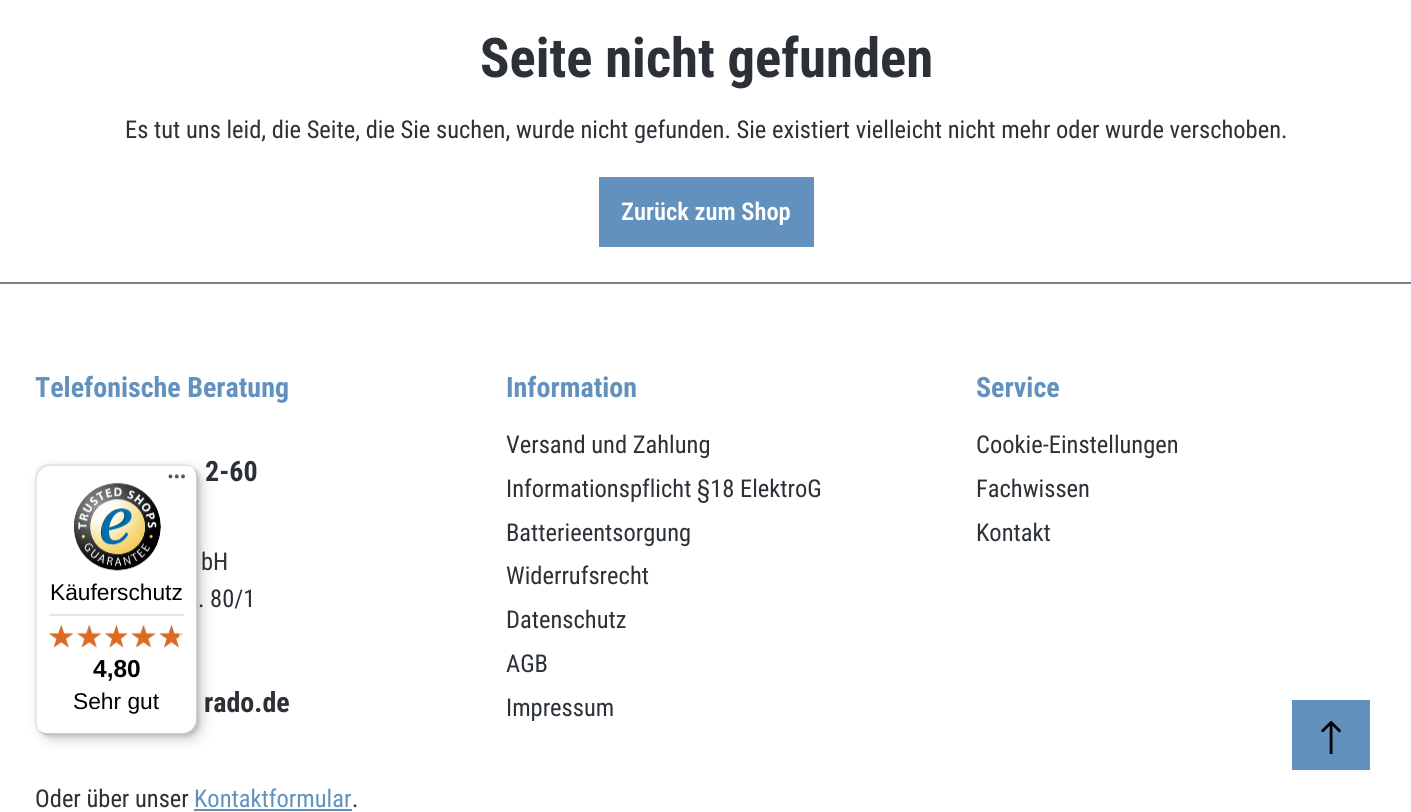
#include <cairo.h>
#include <math.h>
#include <stddef.h>

typedef struct { double x, y; const char *s; } line_t;

static void ink(cairo_t *ctx, unsigned color) {
    cairo_set_source_rgb(ctx, (color >> 16) / 255.0, (color >> 8 & 255) / 255.0, (color & 255) / 255.0);
}

static void round_path(cairo_t *ctx, double x, double y, double w, double h, double r) {
    cairo_new_sub_path(ctx);
    cairo_arc(ctx, x + w - r, y + h - r, r, 0, M_PI / 2);
    cairo_arc(ctx, x + r, y + h - r, r, M_PI / 2, M_PI);
    cairo_arc(ctx, x + r, y + r, r, M_PI, 1.5 * M_PI);
    cairo_arc(ctx, x + w - r, y + r, r, 1.5 * M_PI, 2 * M_PI);
    cairo_close_path(ctx);
}

static void blur_box(cairo_t *ctx, double x, double y, double w, double h, double r, double blur, double alpha) {
    cairo_push_group_with_content(ctx, CAIRO_CONTENT_ALPHA);
    cairo_set_operator(ctx, CAIRO_OPERATOR_SOURCE);
    for (int i = 15; i >= -15 && fmin(w, h) + blur * i / 3 > 0; i -= 2) {
        double e = blur * i / 6;
        cairo_set_source_rgba(ctx, 0, 0, 0, alpha * erfc((i - 1) / 8.5) / 2);
        round_path(ctx, x - e, y - e, w + 2 * e, h + 2 * e, fmax(0, fmin(r + e + blur * .6, fmin(w, h) / 2 + e)));
        cairo_fill(ctx);
    }
    cairo_pattern_t *soft = cairo_pop_group(ctx);
    cairo_mask(ctx, soft);
    cairo_pattern_destroy(soft);
}

static void paste(cairo_t *ctx, const char *path, double x, double y, double w, double h) {
    cairo_surface_t *image = cairo_image_surface_create_from_png(path);
    cairo_save(ctx);
    cairo_set_source_surface(ctx, image, x, y);
    cairo_rectangle(ctx, x, y, w, h);
    cairo_fill(ctx);
    cairo_restore(ctx);
    cairo_surface_destroy(image);
}

int main(void) {
    cairo_surface_t *surface = cairo_image_surface_create(CAIRO_FORMAT_RGB24, 1411, 812);
    cairo_t *ctx = cairo_create(surface);
    cairo_font_options_t *options = cairo_font_options_create();
    cairo_font_options_set_hint_metrics(options, CAIRO_HINT_METRICS_OFF);
    cairo_font_options_set_hint_style(options, CAIRO_HINT_STYLE_NONE);
    cairo_set_font_options(ctx, options);
    cairo_set_miter_limit(ctx, 4);
    ink(ctx, 0xFFFFFF);
    cairo_paint(ctx);
    cairo_select_font_face(ctx, "Roboto Condensed", CAIRO_FONT_SLANT_NORMAL, CAIRO_FONT_WEIGHT_BOLD);
    cairo_set_font_size(ctx, 54.75);
    ink(ctx, 0x2B3136);
    cairo_move_to(ctx, 480, 77);
    cairo_show_text(ctx, "Seite nicht gefunden");
    cairo_select_font_face(ctx, "Roboto Condensed", CAIRO_FONT_SLANT_NORMAL, CAIRO_FONT_WEIGHT_NORMAL);
    cairo_set_font_size(ctx, 24.5);
    cairo_move_to(ctx, 125, 138);
    cairo_show_text(ctx, "Es tut uns leid, die Seite, die Sie suchen, wurde nicht gefunden. Sie existiert vielleicht nicht mehr oder wurde verschoben.");
    ink(ctx, 0x6391BE);
    cairo_rectangle(ctx, 599, 177, 215, 70);
    cairo_fill(ctx);
    cairo_select_font_face(ctx, "Roboto Condensed SemiBold", CAIRO_FONT_SLANT_NORMAL, CAIRO_FONT_WEIGHT_NORMAL);
    ink(ctx, 0xFFFFFF);
    cairo_move_to(ctx, 621, 220);
    cairo_show_text(ctx, "Zurück zum Shop");
    ink(ctx, 0x798490);
    cairo_rectangle(ctx, 0, 282, 1411, 2);
    cairo_fill(ctx);
    cairo_select_font_face(ctx, "Roboto Condensed", CAIRO_FONT_SLANT_NORMAL, CAIRO_FONT_WEIGHT_BOLD);
    cairo_set_font_size(ctx, 28);
    ink(ctx, 0x6391BE);
    cairo_move_to(ctx, 35, 397);
    cairo_show_text(ctx, "Telefonische Beratung");
    ink(ctx, 0x2B3136);
    cairo_move_to(ctx, 205, 481);
    cairo_show_text(ctx, "2-60");
    cairo_select_font_face(ctx, "Roboto Condensed", CAIRO_FONT_SLANT_NORMAL, CAIRO_FONT_WEIGHT_NORMAL);
    cairo_set_font_size(ctx, 24.5);
    cairo_move_to(ctx, 201, 570);
    cairo_show_text(ctx, "bH");
    cairo_move_to(ctx, 198, 607);
    cairo_show_text(ctx, ". 80/1");
    cairo_select_font_face(ctx, "Roboto Condensed", CAIRO_FONT_SLANT_NORMAL, CAIRO_FONT_WEIGHT_BOLD);
    cairo_set_font_size(ctx, 28);
    cairo_move_to(ctx, 204, 712);
    cairo_show_text(ctx, "rado.de");
    cairo_select_font_face(ctx, "Roboto Condensed", CAIRO_FONT_SLANT_NORMAL, CAIRO_FONT_WEIGHT_NORMAL);
    cairo_set_font_size(ctx, 24.5);
    cairo_move_to(ctx, 35, 807);
    cairo_show_text(ctx, "Oder über unser");
    ink(ctx, 0x6391BE);
    cairo_move_to(ctx, 194, 807);
    cairo_show_text(ctx, "Kontaktformular");
    cairo_rectangle(ctx, 194, 809, 158, 2);
    cairo_fill(ctx);
    ink(ctx, 0x2B3136);
    cairo_move_to(ctx, 352, 807);
    cairo_show_text(ctx, ".");
    cairo_select_font_face(ctx, "Roboto Condensed", CAIRO_FONT_SLANT_NORMAL, CAIRO_FONT_WEIGHT_BOLD);
    cairo_set_font_size(ctx, 28);
    ink(ctx, 0x6391BE);
    cairo_move_to(ctx, 506, 397);
    cairo_show_text(ctx, "Information");
    cairo_select_font_face(ctx, "Roboto Condensed", CAIRO_FONT_SLANT_NORMAL, CAIRO_FONT_WEIGHT_NORMAL);
    cairo_set_font_size(ctx, 24.5);
    ink(ctx, 0x2B3136);
    {
        static const line_t items[] = {
            {506, 453, "Versand und Zahlung"},
            {506, 497, "Informationspflicht §18 ElektroG"},
            {506, 541, "Batterieentsorgung"},
            {506, 584, "Widerrufsrecht"},
            {506, 628, "Datenschutz"},
            {506, 672, "AGB"},
            {506, 716, "Impressum"},
        };
        for (size_t i = 0; i < sizeof items / sizeof *items; i++) {
            cairo_move_to(ctx, items[i].x, items[i].y);
            cairo_show_text(ctx, items[i].s);
        }
    }
    cairo_select_font_face(ctx, "Roboto Condensed", CAIRO_FONT_SLANT_NORMAL, CAIRO_FONT_WEIGHT_BOLD);
    cairo_set_font_size(ctx, 28);
    ink(ctx, 0x6391BE);
    cairo_move_to(ctx, 976, 397);
    cairo_show_text(ctx, "Service");
    cairo_select_font_face(ctx, "Roboto Condensed", CAIRO_FONT_SLANT_NORMAL, CAIRO_FONT_WEIGHT_NORMAL);
    cairo_set_font_size(ctx, 24.5);
    ink(ctx, 0x2B3136);
    {
        static const line_t items[] = {
            {976, 453, "Cookie-Einstellungen"},
            {976, 497, "Fachwissen"},
            {976, 541, "Kontakt"},
        };
        for (size_t i = 0; i < sizeof items / sizeof *items; i++) {
            cairo_move_to(ctx, items[i].x, items[i].y);
            cairo_show_text(ctx, items[i].s);
        }
    }
    ink(ctx, 0x000000);
    blur_box(ctx, 40, 469, 163, 271, 14, 7, 0.15);
    blur_box(ctx, 37, 466, 163, 271, 14, 2, 0.15);
    ink(ctx, 0xFFFFFF);
    round_path(ctx, 35, 464, 163, 271, 14);
    cairo_fill(ctx);
    cairo_set_source_rgba(ctx, 0, 0, 0, 0.1);
    cairo_new_path(ctx);
    cairo_move_to(ctx, 51, 466);
    cairo_line_to(ctx, 186, 466);
    cairo_curve_to(ctx, 189, 466, 193, 467, 195, 470);
    cairo_curve_to(ctx, 193, 466, 189, 464, 184, 464);
    cairo_line_to(ctx, 49, 464);
    cairo_curve_to(ctx, 41, 464, 35, 470, 35, 478);
    cairo_line_to(ctx, 35, 721);
    cairo_curve_to(ctx, 35, 726, 37, 730, 41, 732);
    cairo_curve_to(ctx, 38, 730, 37, 726, 37, 723);
    cairo_line_to(ctx, 37, 480);
    cairo_curve_to(ctx, 37, 472, 43, 466, 51, 466);
    cairo_close_path(ctx);
    cairo_fill(ctx);
    cairo_set_source_rgba(ctx, 0, 0, 0, 0.2);
    cairo_new_path(ctx);
    cairo_move_to(ctx, 38, 729);
    cairo_curve_to(ctx, 40, 733, 44, 735, 49, 735);
    cairo_line_to(ctx, 184, 735);
    cairo_curve_to(ctx, 192, 735, 198, 729, 198, 721);
    cairo_line_to(ctx, 198, 478);
    cairo_curve_to(ctx, 198, 474, 196, 470, 193, 468);
    cairo_curve_to(ctx, 195, 470, 196, 473, 196, 476);
    cairo_line_to(ctx, 196, 719);
    cairo_curve_to(ctx, 196, 727, 190, 733, 182, 733);
    cairo_line_to(ctx, 47, 733);
    cairo_curve_to(ctx, 44, 733, 40, 732, 38, 729);
    cairo_close_path(ctx);
    cairo_fill(ctx);
    cairo_set_source_rgba(ctx, 0.196, 0.196, 0.196, 0.2);
    cairo_new_path(ctx);
    cairo_move_to(ctx, 40, 731);
    cairo_curve_to(ctx, 42, 734, 45, 735, 49, 735);
    cairo_line_to(ctx, 184, 735);
    cairo_curve_to(ctx, 192, 735, 198, 729, 198, 721);
    cairo_line_to(ctx, 198, 478);
    cairo_curve_to(ctx, 198, 473, 196, 469, 192, 467);
    cairo_curve_to(ctx, 195, 469, 197, 473, 197, 477);
    cairo_line_to(ctx, 197, 720);
    cairo_curve_to(ctx, 197, 728, 190, 734, 183, 734);
    cairo_line_to(ctx, 48, 734);
    cairo_curve_to(ctx, 45, 734, 42, 733, 40, 731);
    cairo_close_path(ctx);
    cairo_fill(ctx);
    cairo_set_source_rgba(ctx, 1, 1, 1, 0.3);
    cairo_new_path(ctx);
    cairo_move_to(ctx, 40, 731);
    cairo_curve_to(ctx, 42, 734, 45, 735, 49, 735);
    cairo_line_to(ctx, 184, 735);
    cairo_curve_to(ctx, 192, 735, 198, 729, 198, 721);
    cairo_line_to(ctx, 198, 478);
    cairo_curve_to(ctx, 198, 474, 197, 471, 194, 469);
    cairo_curve_to(ctx, 196, 471, 197, 474, 197, 477);
    cairo_line_to(ctx, 197, 720);
    cairo_curve_to(ctx, 197, 728, 191, 734, 183, 734);
    cairo_line_to(ctx, 48, 734);
    cairo_curve_to(ctx, 45, 734, 42, 733, 40, 731);
    cairo_close_path(ctx);
    cairo_fill(ctx);
    paste(ctx, "media/1.png", 168, 474, 17, 5);
    paste(ctx, "media/2.png", 74, 483, 87, 88);
    cairo_select_font_face(ctx, "Liberation Sans", CAIRO_FONT_SLANT_NORMAL, CAIRO_FONT_WEIGHT_NORMAL);
    cairo_set_font_size(ctx, 22.75);
    ink(ctx, 0x000000);
    cairo_move_to(ctx, 50, 600);
    cairo_show_text(ctx, "Käuferschutz");
    ink(ctx, 0xE5E5E5);
    cairo_rectangle(ctx, 49, 614, 135, 2);
    cairo_fill(ctx);
    paste(ctx, "media/8.png", 49, 625, 24, 23);
    paste(ctx, "media/3.png", 49, 624, 24, 24);
    paste(ctx, "media/9.png", 77, 625, 24, 23);
    paste(ctx, "media/4.png", 77, 624, 25, 24);
    paste(ctx, "media/10.png", 105, 625, 23, 23);
    paste(ctx, "media/5.png", 105, 624, 23, 24);
    paste(ctx, "media/11.png", 131, 625, 25, 22);
    paste(ctx, "media/6.png", 131, 624, 25, 24);
    paste(ctx, "media/12.png", 160, 625, 23, 23);
    paste(ctx, "media/7.png", 159, 624, 20, 24);
    cairo_select_font_face(ctx, "Liberation Sans", CAIRO_FONT_SLANT_NORMAL, CAIRO_FONT_WEIGHT_BOLD);
    cairo_set_font_size(ctx, 24.5);
    ink(ctx, 0x000000);
    cairo_move_to(ctx, 93, 677);
    cairo_show_text(ctx, "4,80");
    cairo_select_font_face(ctx, "Liberation Sans", CAIRO_FONT_SLANT_NORMAL, CAIRO_FONT_WEIGHT_NORMAL);
    cairo_set_font_size(ctx, 22.75);
    cairo_move_to(ctx, 73, 709);
    cairo_show_text(ctx, "Sehr gut");
    ink(ctx, 0x6391BE);
    cairo_rectangle(ctx, 1292, 700, 78, 70);
    cairo_fill(ctx);
    paste(ctx, "media/13.png", 1321, 721, 20, 33);
    cairo_surface_write_to_png(surface, "image.png");
    cairo_font_options_destroy(options);
    cairo_destroy(ctx);
    cairo_surface_destroy(surface);
    return 0;
}
